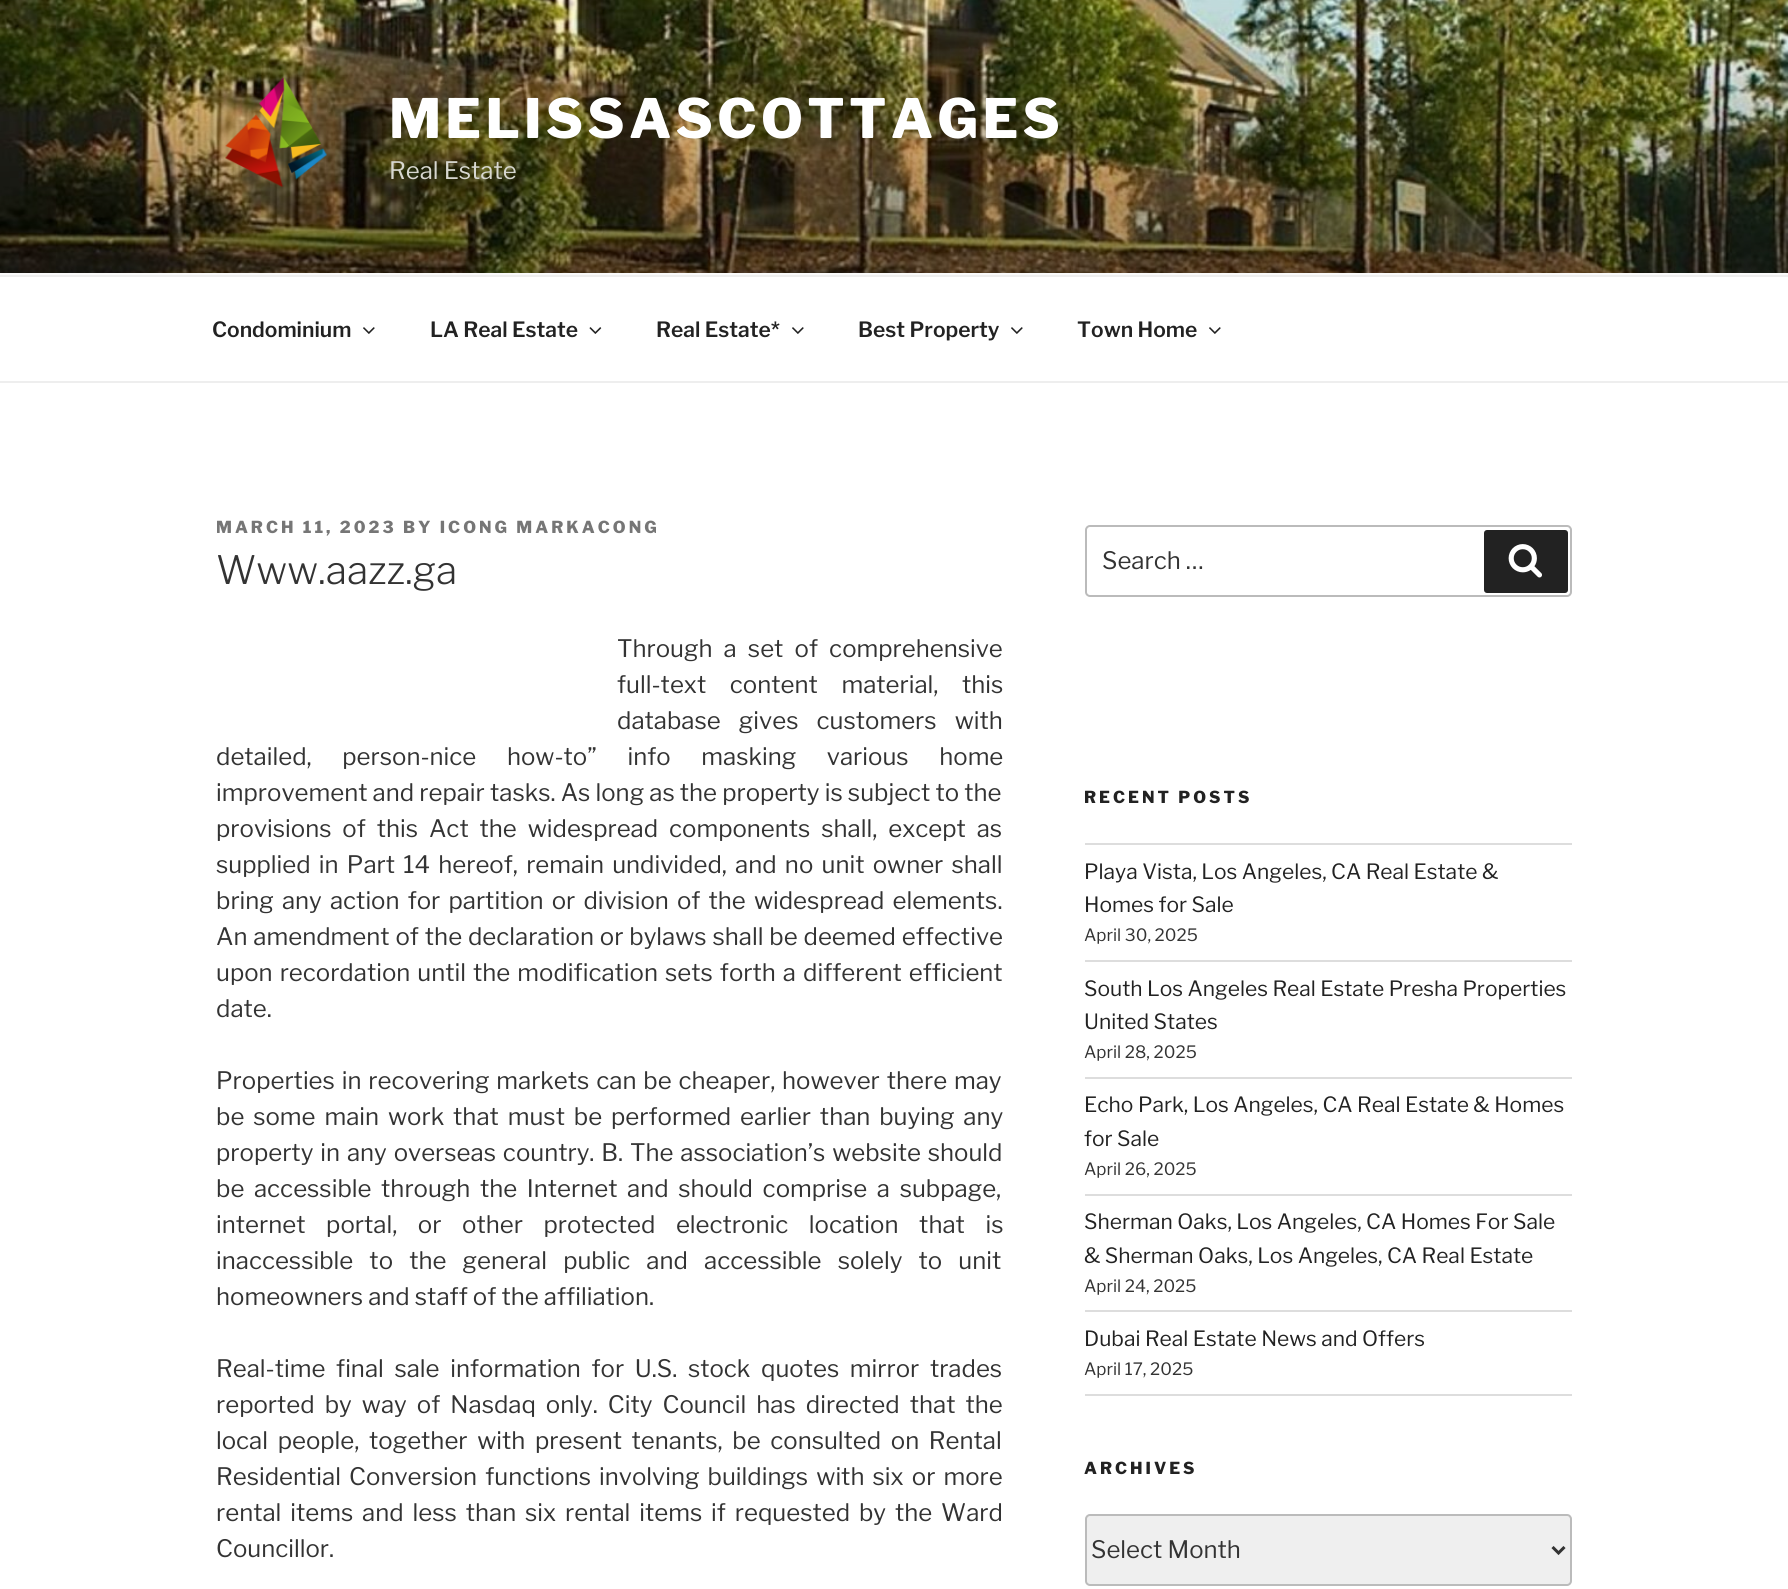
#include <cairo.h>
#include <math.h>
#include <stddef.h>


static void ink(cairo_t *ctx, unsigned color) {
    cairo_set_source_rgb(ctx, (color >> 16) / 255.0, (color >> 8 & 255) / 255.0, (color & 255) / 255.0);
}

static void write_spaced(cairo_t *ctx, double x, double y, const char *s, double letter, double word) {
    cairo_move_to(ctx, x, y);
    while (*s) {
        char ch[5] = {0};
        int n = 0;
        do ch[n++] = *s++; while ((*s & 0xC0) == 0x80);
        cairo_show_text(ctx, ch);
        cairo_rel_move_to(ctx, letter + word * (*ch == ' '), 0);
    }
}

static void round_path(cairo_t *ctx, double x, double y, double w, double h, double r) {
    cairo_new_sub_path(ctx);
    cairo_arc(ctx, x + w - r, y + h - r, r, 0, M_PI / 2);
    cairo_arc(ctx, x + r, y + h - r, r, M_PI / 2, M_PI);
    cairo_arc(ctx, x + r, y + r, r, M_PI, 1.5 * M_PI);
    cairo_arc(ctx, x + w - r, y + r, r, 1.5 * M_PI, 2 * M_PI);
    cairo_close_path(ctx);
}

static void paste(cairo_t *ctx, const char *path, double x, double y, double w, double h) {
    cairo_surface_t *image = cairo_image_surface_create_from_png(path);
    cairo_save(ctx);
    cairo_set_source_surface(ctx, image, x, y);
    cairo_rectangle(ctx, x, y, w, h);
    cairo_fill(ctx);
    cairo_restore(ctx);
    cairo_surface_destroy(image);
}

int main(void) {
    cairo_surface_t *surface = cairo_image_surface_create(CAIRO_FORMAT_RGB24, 1788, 1589);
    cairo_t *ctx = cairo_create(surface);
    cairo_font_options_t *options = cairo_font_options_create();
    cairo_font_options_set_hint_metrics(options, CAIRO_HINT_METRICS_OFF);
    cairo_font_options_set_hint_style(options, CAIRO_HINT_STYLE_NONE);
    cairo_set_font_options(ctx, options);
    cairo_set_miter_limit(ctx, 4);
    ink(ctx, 0xFFFFFF);
    cairo_paint(ctx);
    ink(ctx, 0xFAFAFA);
    cairo_rectangle(ctx, 0, 273, 1788, 2);
    cairo_fill(ctx);
    paste(ctx, "media/1.png", 0, 0, 1788, 273);
    paste(ctx, "media/2.png", 225, 77, 102, 110);
    cairo_select_font_face(ctx, "Libre Franklin Thin", CAIRO_FONT_SLANT_NORMAL, CAIRO_FONT_WEIGHT_NORMAL);
    cairo_set_font_size(ctx, 54);
    ink(ctx, 0xFFFFFF);
    write_spaced(ctx, 389, 138, "MELISSASCOTTAGES", 4.3, 0);
    cairo_select_font_face(ctx, "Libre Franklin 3 Thin", CAIRO_FONT_SLANT_NORMAL, CAIRO_FONT_WEIGHT_NORMAL);
    cairo_set_font_size(ctx, 24);
    ink(ctx, 0xD7D7D0);
    cairo_move_to(ctx, 389, 179);
    cairo_show_text(ctx, "Real Estate");
    ink(ctx, 0xEEEEEE);
    cairo_rectangle(ctx, 0, 275, 1788, 2);
    cairo_fill(ctx);
    cairo_rectangle(ctx, 0, 381, 1788, 2);
    cairo_fill(ctx);
    cairo_select_font_face(ctx, "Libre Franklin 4 Thin", CAIRO_FONT_SLANT_NORMAL, CAIRO_FONT_WEIGHT_NORMAL);
    cairo_set_font_size(ctx, 21);
    ink(ctx, 0x222222);
    cairo_move_to(ctx, 212, 337);
    cairo_show_text(ctx, "Condominium");
    paste(ctx, "media/3.png", 363, 327, 12, 7);
    cairo_move_to(ctx, 430, 337);
    cairo_show_text(ctx, "LA Real Estate");
    paste(ctx, "media/4.png", 589, 327, 13, 7);
    cairo_move_to(ctx, 656, 337);
    cairo_show_text(ctx, "Real Estate*");
    paste(ctx, "media/3.png", 792, 327, 12, 7);
    cairo_move_to(ctx, 858, 337);
    cairo_show_text(ctx, "Best Property");
    paste(ctx, "media/3.png", 1011, 327, 12, 7);
    cairo_move_to(ctx, 1077, 337);
    cairo_show_text(ctx, "Town Home");
    paste(ctx, "media/3.png", 1209, 327, 12, 7);
    cairo_select_font_face(ctx, "Libre Franklin Thin", CAIRO_FONT_SLANT_NORMAL, CAIRO_FONT_WEIGHT_NORMAL);
    cairo_set_font_size(ctx, 16.5);
    ink(ctx, 0x767676);
    write_spaced(ctx, 216, 533, "MARCH 11, 2023 BY ICONG MARKACONG", 3, 0);
    cairo_select_font_face(ctx, "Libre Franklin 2 Thin", CAIRO_FONT_SLANT_NORMAL, CAIRO_FONT_WEIGHT_NORMAL);
    cairo_set_font_size(ctx, 39);
    ink(ctx, 0x333333);
    cairo_move_to(ctx, 216, 584);
    cairo_show_text(ctx, "Www.aazz.ga");
    cairo_select_font_face(ctx, "Libre Franklin 3 Thin", CAIRO_FONT_SLANT_NORMAL, CAIRO_FONT_WEIGHT_NORMAL);
    cairo_set_font_size(ctx, 24);
    write_spaced(ctx, 617, 657, "Through a set of comprehensive", 0, 6);
    write_spaced(ctx, 617, 693, "full-text content material, this", 0, 18.5);
    write_spaced(ctx, 617, 729, "database gives customers with", 0, 13);
    write_spaced(ctx, 216, 765, "detailed, person-nice how-to” info masking various home", 0, 25.5);
    cairo_move_to(ctx, 216, 801);
    cairo_show_text(ctx, "improvement and repair tasks. As long as the property is subject to the");
    write_spaced(ctx, 216, 837, "provisions of this Act the widespread components shall, except as", 0, 5.75);
    write_spaced(ctx, 216, 873, "supplied in Part 14 hereof, remain undivided, and no unit owner shall", 0, 3.1);
    write_spaced(ctx, 216, 909, "bring any action for partition or division of the widespread elements.", 0, 3);
    write_spaced(ctx, 216, 945, "An amendment of the declaration or bylaws shall be deemed effective", 0, 0.75);
    write_spaced(ctx, 216, 981, "upon recordation until the modification sets forth a different efficient", 0, 1.9);
    cairo_move_to(ctx, 216, 1017);
    cairo_show_text(ctx, "date.");
    write_spaced(ctx, 216, 1089, "Properties in recovering markets can be cheaper, however there may", 0, 1.75);
    write_spaced(ctx, 216, 1125, "be some main work that must be performed earlier than buying any", 0, 3.75);
    write_spaced(ctx, 216, 1161, "property in any overseas country. B. The association’s website should", 0, 1.75);
    write_spaced(ctx, 216, 1197, "be accessible through the Internet and should comprise a subpage,", 0, 4.5);
    write_spaced(ctx, 216, 1233, "internet portal, or other protected electronic location that is", 0, 15.5);
    write_spaced(ctx, 216, 1269, "inaccessible to the general public and accessible solely to unit", 0, 11);
    cairo_move_to(ctx, 216, 1305);
    cairo_show_text(ctx, "homeowners and staff of the affiliation.");
    write_spaced(ctx, 216, 1377, "Real-time final sale information for U.S. stock quotes mirror trades", 0, 5.5);
    write_spaced(ctx, 216, 1413, "reported by way of Nasdaq only. City Council has directed that the", 0, 4.9);
    write_spaced(ctx, 216, 1449, "local people, together with present tenants, be consulted on Rental", 0, 4.5);
    write_spaced(ctx, 216, 1485, "Residential Conversion functions involving buildings with six or more", 0, 3);
    write_spaced(ctx, 216, 1521, "rental items and less than six rental items if requested by the Ward", 0, 3.75);
    cairo_move_to(ctx, 216, 1557);
    cairo_show_text(ctx, "Councillor.");
    round_path(ctx, 1086, 526, 485, 70, 4);
    ink(ctx, 0xBBBBBB);
    cairo_stroke(ctx);
    ink(ctx, 0x333333);
    cairo_move_to(ctx, 1102, 569);
    cairo_show_text(ctx, "Search …");
    ink(ctx, 0x222222);
    round_path(ctx, 1484, 530, 84, 63, 3);
    cairo_fill(ctx);
    paste(ctx, "media/5.png", 1508, 544, 34, 34);
    cairo_select_font_face(ctx, "Libre Franklin Thin", CAIRO_FONT_SLANT_NORMAL, CAIRO_FONT_WEIGHT_NORMAL);
    cairo_set_font_size(ctx, 16.5);
    write_spaced(ctx, 1084, 803, "RECENT POSTS", 3, 0);
    ink(ctx, 0xDDDDDD);
    cairo_rectangle(ctx, 1085, 843, 487, 2);
    cairo_fill(ctx);
    cairo_rectangle(ctx, 1085, 960, 487, 2);
    cairo_fill(ctx);
    cairo_select_font_face(ctx, "Libre Franklin 3 Thin", CAIRO_FONT_SLANT_NORMAL, CAIRO_FONT_WEIGHT_NORMAL);
    cairo_set_font_size(ctx, 21);
    ink(ctx, 0x222222);
    cairo_move_to(ctx, 1084, 879);
    cairo_show_text(ctx, "Playa Vista, Los Angeles, CA Real Estate &");
    cairo_move_to(ctx, 1084, 912);
    cairo_show_text(ctx, "Homes for Sale");
    cairo_set_font_size(ctx, 17);
    ink(ctx, 0x333333);
    cairo_move_to(ctx, 1084, 941);
    cairo_show_text(ctx, "April 30, 2025");
    ink(ctx, 0xDDDDDD);
    cairo_rectangle(ctx, 1085, 1077, 487, 2);
    cairo_fill(ctx);
    cairo_set_font_size(ctx, 21);
    ink(ctx, 0x222222);
    cairo_move_to(ctx, 1084, 996);
    cairo_show_text(ctx, "South Los Angeles Real Estate Presha Properties");
    cairo_move_to(ctx, 1084, 1029);
    cairo_show_text(ctx, "United States");
    cairo_set_font_size(ctx, 17);
    ink(ctx, 0x333333);
    cairo_move_to(ctx, 1084, 1058);
    cairo_show_text(ctx, "April 28, 2025");
    ink(ctx, 0xDDDDDD);
    cairo_rectangle(ctx, 1085, 1194, 487, 2);
    cairo_fill(ctx);
    cairo_set_font_size(ctx, 21);
    ink(ctx, 0x222222);
    cairo_move_to(ctx, 1084, 1112);
    cairo_show_text(ctx, "Echo Park, Los Angeles, CA Real Estate & Homes");
    cairo_move_to(ctx, 1084, 1146);
    cairo_show_text(ctx, "for Sale");
    cairo_set_font_size(ctx, 17);
    ink(ctx, 0x333333);
    cairo_move_to(ctx, 1084, 1175);
    cairo_show_text(ctx, "April 26, 2025");
    ink(ctx, 0xDDDDDD);
    cairo_rectangle(ctx, 1085, 1310, 487, 2);
    cairo_fill(ctx);
    cairo_set_font_size(ctx, 21);
    ink(ctx, 0x222222);
    cairo_move_to(ctx, 1084, 1229);
    cairo_show_text(ctx, "Sherman Oaks, Los Angeles, CA Homes For Sale");
    cairo_move_to(ctx, 1084, 1263);
    cairo_show_text(ctx, "& Sherman Oaks, Los Angeles, CA Real Estate");
    cairo_set_font_size(ctx, 17);
    ink(ctx, 0x333333);
    cairo_move_to(ctx, 1084, 1292);
    cairo_show_text(ctx, "April 24, 2025");
    ink(ctx, 0xDDDDDD);
    cairo_rectangle(ctx, 1085, 1394, 487, 2);
    cairo_fill(ctx);
    cairo_set_font_size(ctx, 21);
    ink(ctx, 0x222222);
    cairo_move_to(ctx, 1084, 1346);
    cairo_show_text(ctx, "Dubai Real Estate News and Offers");
    cairo_set_font_size(ctx, 17);
    ink(ctx, 0x333333);
    cairo_move_to(ctx, 1084, 1375);
    cairo_show_text(ctx, "April 17, 2025");
    cairo_select_font_face(ctx, "Libre Franklin Thin", CAIRO_FONT_SLANT_NORMAL, CAIRO_FONT_WEIGHT_NORMAL);
    cairo_set_font_size(ctx, 16.5);
    ink(ctx, 0x222222);
    write_spaced(ctx, 1084, 1474, "ARCHIVES", 3, 0);
    ink(ctx, 0xEFEFEF);
    round_path(ctx, 1086, 1515, 485, 70, 4);
    cairo_fill_preserve(ctx);
    ink(ctx, 0xBBBBBB);
    cairo_stroke(ctx);
    cairo_new_path(ctx);
    cairo_move_to(ctx, 1552.5, 1547);
    cairo_line_to(ctx, 1558.5, 1553);
    cairo_line_to(ctx, 1564.5, 1547);
    ink(ctx, 0x333333);
    cairo_set_line_width(ctx, 3);
    cairo_stroke(ctx);
    cairo_select_font_face(ctx, "Libre Franklin 3 Thin", CAIRO_FONT_SLANT_NORMAL, CAIRO_FONT_WEIGHT_NORMAL);
    cairo_set_font_size(ctx, 24);
    cairo_move_to(ctx, 1091, 1558);
    cairo_show_text(ctx, "Select Month");
    cairo_surface_write_to_png(surface, "image.png");
    cairo_font_options_destroy(options);
    cairo_destroy(ctx);
    cairo_surface_destroy(surface);
    return 0;
}
